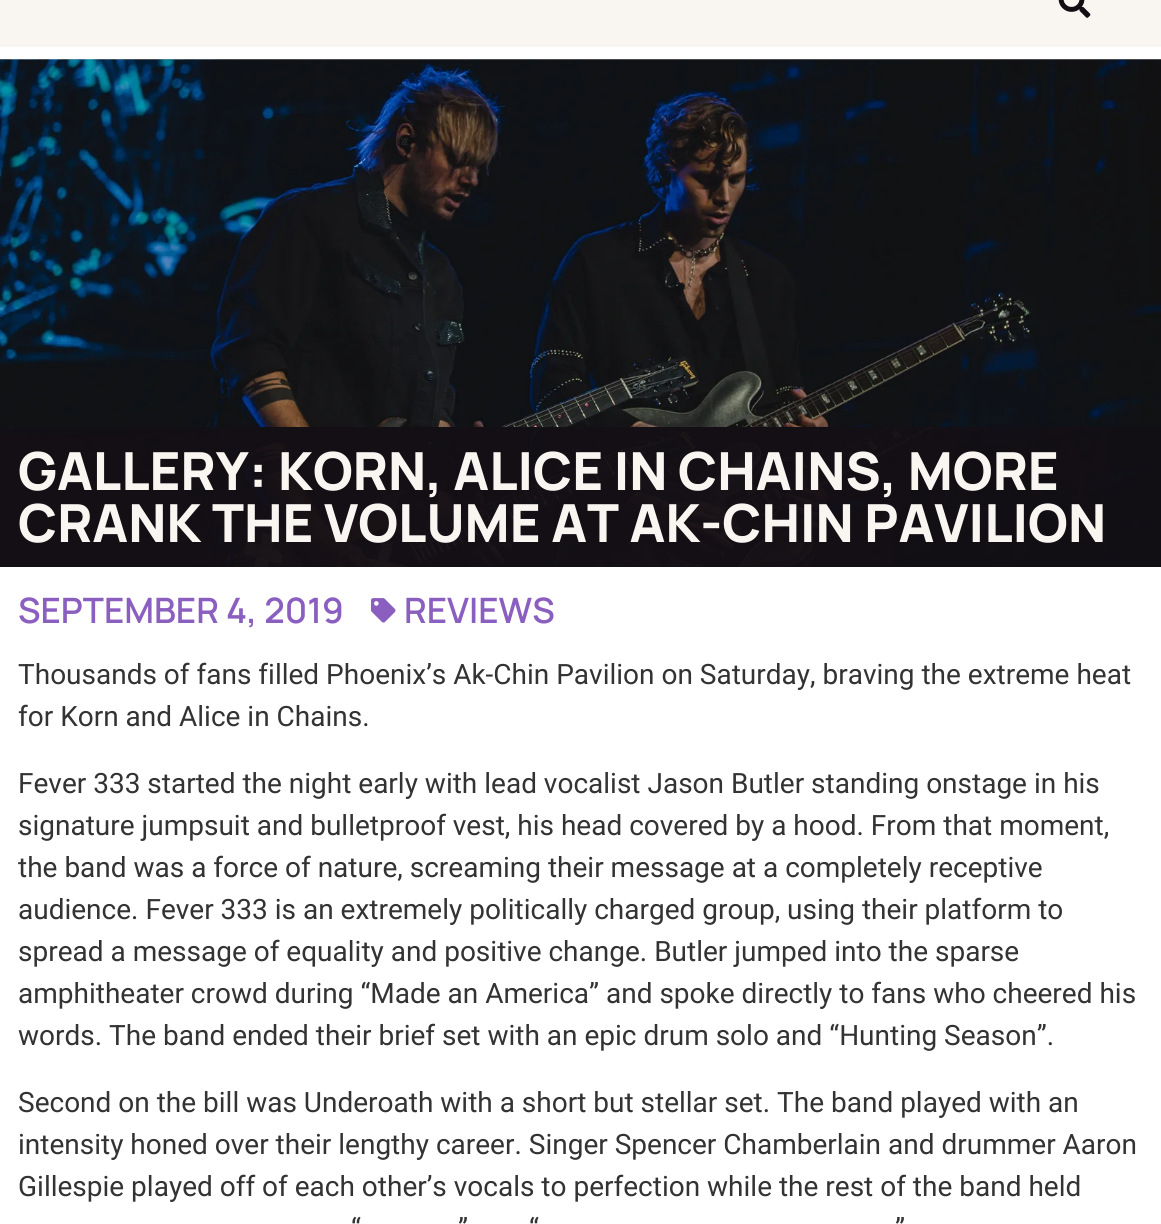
#include <cairo.h>
#include <math.h>
#include <stddef.h>

typedef struct { double x, y; const char *s; } line_t;

static void ink(cairo_t *ctx, unsigned color) {
    cairo_set_source_rgb(ctx, (color >> 16) / 255.0, (color >> 8 & 255) / 255.0, (color & 255) / 255.0);
}

static void paste(cairo_t *ctx, const char *path, double x, double y, double w, double h) {
    cairo_surface_t *image = cairo_image_surface_create_from_png(path);
    cairo_save(ctx);
    cairo_set_source_surface(ctx, image, x, y);
    cairo_rectangle(ctx, x, y, w, h);
    cairo_fill(ctx);
    cairo_restore(ctx);
    cairo_surface_destroy(image);
}

int main(void) {
    cairo_surface_t *surface = cairo_image_surface_create(CAIRO_FORMAT_RGB24, 1161, 1224);
    cairo_t *ctx = cairo_create(surface);
    cairo_font_options_t *options = cairo_font_options_create();
    cairo_font_options_set_hint_metrics(options, CAIRO_HINT_METRICS_OFF);
    cairo_font_options_set_hint_style(options, CAIRO_HINT_STYLE_NONE);
    cairo_set_font_options(ctx, options);
    cairo_set_miter_limit(ctx, 4);
    ink(ctx, 0xFFFFFF);
    cairo_paint(ctx);
    ink(ctx, 0xF9F6F1);
    cairo_rectangle(ctx, 0, 0, 1161, 47);
    cairo_fill(ctx);
    paste(ctx, "media/1.png", 1058, 0, 33, 18);
    paste(ctx, "media/2.png", 0, 59, 1161, 508);
    paste(ctx, "media/3.png", 0, 59, 1161, 368);
    cairo_set_source_rgba(ctx, 0.075, 0.059, 0.082, 0.75);
    cairo_rectangle(ctx, 0, 427, 1108, 140);
    cairo_fill(ctx);
    cairo_select_font_face(ctx, "Manrope ExtraBold", CAIRO_FONT_SLANT_NORMAL, CAIRO_FONT_WEIGHT_NORMAL);
    cairo_set_font_size(ctx, 52.5);
    ink(ctx, 0xF9F6F1);
    cairo_move_to(ctx, 18, 490);
    cairo_show_text(ctx, "GALLERY: KORN, ALICE IN CHAINS, MORE");
    cairo_move_to(ctx, 18, 542);
    cairo_show_text(ctx, "CRANK THE VOLUME AT AK-CHIN PAVILION");
    cairo_select_font_face(ctx, "Manrope SemiBold", CAIRO_FONT_SLANT_NORMAL, CAIRO_FONT_WEIGHT_NORMAL);
    cairo_set_font_size(ctx, 35);
    ink(ctx, 0x8B5FBF);
    cairo_move_to(ctx, 18, 623);
    cairo_show_text(ctx, "SEPTEMBER 4, 2019");
    paste(ctx, "media/4.png", 371, 598, 25, 25);
    cairo_move_to(ctx, 404, 623);
    cairo_show_text(ctx, "REVIEWS");
    cairo_select_font_face(ctx, "Roboto", CAIRO_FONT_SLANT_NORMAL, CAIRO_FONT_WEIGHT_NORMAL);
    cairo_set_font_size(ctx, 28);
    ink(ctx, 0x333333);
    {
        static const line_t items[] = {
            {18, 684, "Thousands of fans filled Phoenix’s Ak-Chin Pavilion on Saturday, braving the extreme heat"},
            {18, 726, "for Korn and Alice in Chains."},
            {18, 793, "Fever 333 started the night early with lead vocalist Jason Butler standing onstage in his"},
            {18, 835, "signature jumpsuit and bulletproof vest, his head covered by a hood. From that moment,"},
            {18, 877, "the band was a force of nature, screaming their message at a completely receptive"},
            {18, 919, "audience. Fever 333 is an extremely politically charged group, using their platform to"},
            {18, 961, "spread a message of equality and positive change. Butler jumped into the sparse"},
            {18, 1003, "amphitheater crowd during “Made an America” and spoke directly to fans who cheered his"},
            {18, 1045, "words. The band ended their brief set with an epic drum solo and “Hunting Season”."},
            {18, 1112, "Second on the bill was Underoath with a short but stellar set. The band played with an"},
            {18, 1154, "intensity honed over their lengthy career. Singer Spencer Chamberlain and drummer Aaron"},
            {18, 1196, "Gillespie played off of each other’s vocals to perfection while the rest of the band held"},
            {351, 1238, "“"},
            {458, 1238, "”"},
            {529, 1238, "“"},
            {895, 1238, "”"},
        };
        for (size_t i = 0; i < sizeof items / sizeof *items; i++) {
            cairo_move_to(ctx, items[i].x, items[i].y);
            cairo_show_text(ctx, items[i].s);
        }
    }
    cairo_surface_write_to_png(surface, "image.png");
    cairo_font_options_destroy(options);
    cairo_destroy(ctx);
    cairo_surface_destroy(surface);
    return 0;
}
